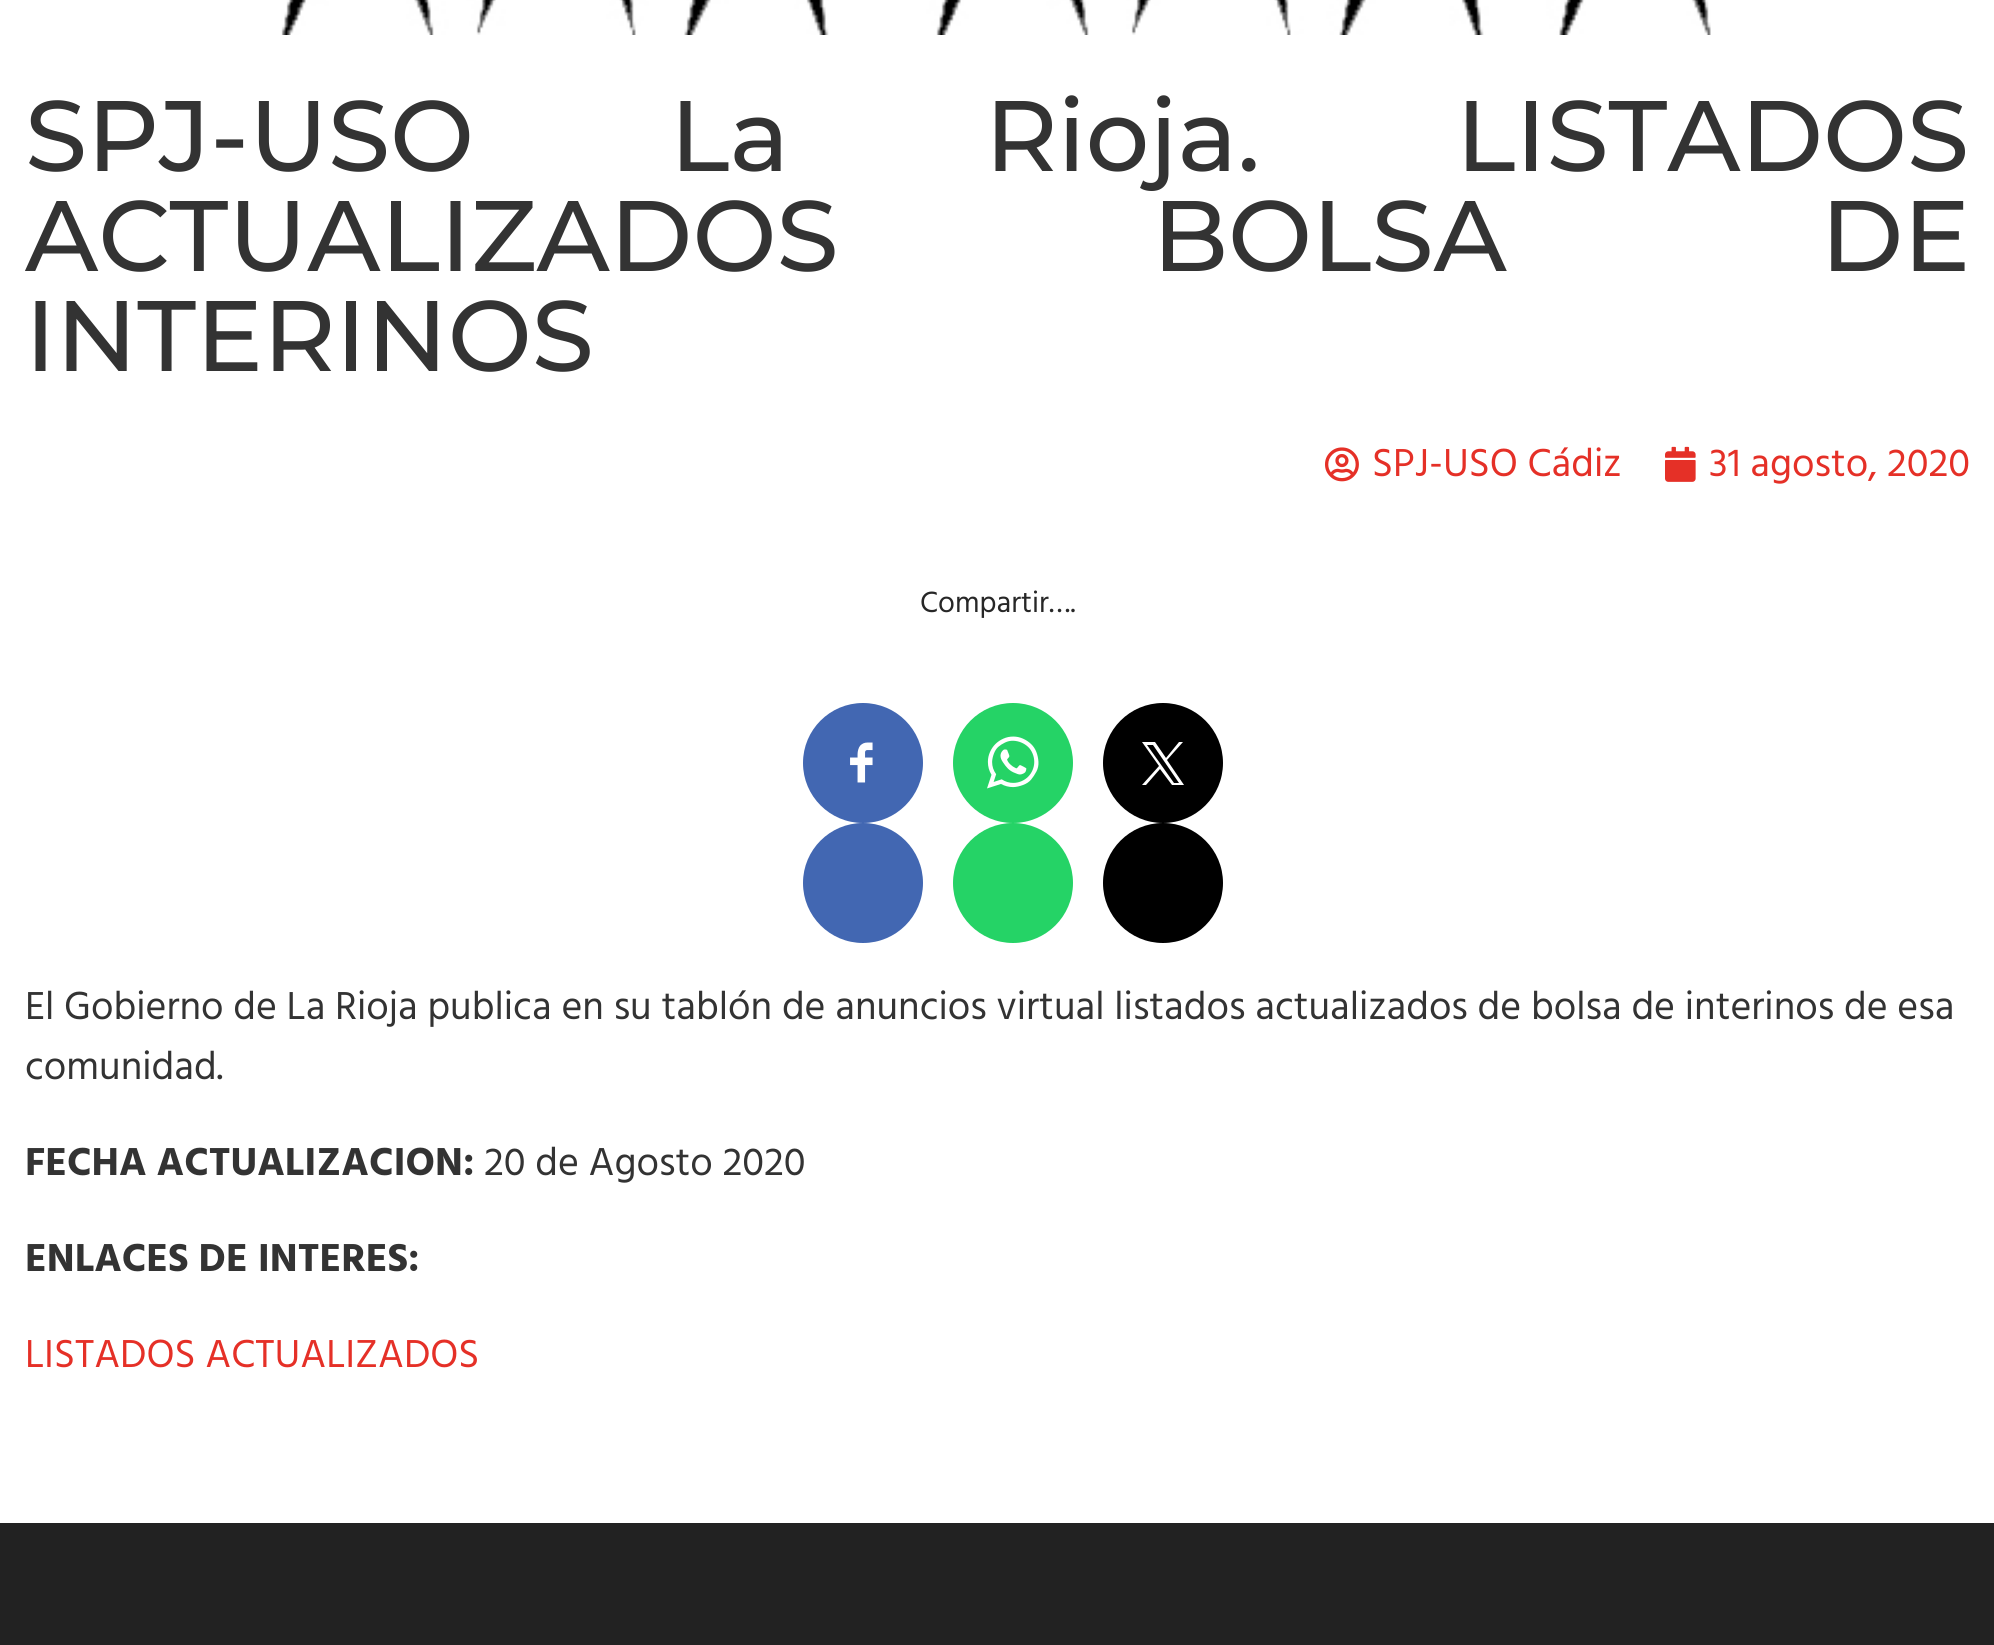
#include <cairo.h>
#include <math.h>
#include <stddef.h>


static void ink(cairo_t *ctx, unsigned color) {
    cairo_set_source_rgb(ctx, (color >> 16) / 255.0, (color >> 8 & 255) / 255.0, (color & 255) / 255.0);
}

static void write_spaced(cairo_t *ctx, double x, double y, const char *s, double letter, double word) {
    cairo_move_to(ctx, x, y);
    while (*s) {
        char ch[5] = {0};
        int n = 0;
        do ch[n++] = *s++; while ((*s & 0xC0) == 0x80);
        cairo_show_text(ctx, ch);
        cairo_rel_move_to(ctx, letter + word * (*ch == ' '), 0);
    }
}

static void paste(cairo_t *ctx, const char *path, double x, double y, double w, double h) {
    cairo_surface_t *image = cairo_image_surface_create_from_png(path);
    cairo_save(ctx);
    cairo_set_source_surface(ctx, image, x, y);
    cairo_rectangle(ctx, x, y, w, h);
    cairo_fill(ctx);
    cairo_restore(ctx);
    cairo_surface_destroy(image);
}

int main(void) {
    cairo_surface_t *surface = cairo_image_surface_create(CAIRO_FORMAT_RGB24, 1994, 1645);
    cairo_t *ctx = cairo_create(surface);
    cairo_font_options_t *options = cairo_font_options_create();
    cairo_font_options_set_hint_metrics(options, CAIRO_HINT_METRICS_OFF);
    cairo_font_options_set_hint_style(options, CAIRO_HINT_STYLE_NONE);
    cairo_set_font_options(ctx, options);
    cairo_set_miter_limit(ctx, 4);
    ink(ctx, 0xFFFFFF);
    cairo_paint(ctx);
    paste(ctx, "media/1.png", 281, 0, 1430, 35);
    cairo_select_font_face(ctx, "Montserrat Medium", CAIRO_FONT_SLANT_NORMAL, CAIRO_FONT_WEIGHT_NORMAL);
    cairo_set_font_size(ctx, 100);
    ink(ctx, 0x333333);
    write_spaced(ctx, 25, 171, "SPJ-USO La Rioja. LISTADOS", 0, 169);
    write_spaced(ctx, 25, 271, "ACTUALIZADOS BOLSA DE", 0, 287);
    cairo_move_to(ctx, 25, 371);
    cairo_show_text(ctx, "INTERINOS");
    paste(ctx, "media/2.png", 1325, 447, 34, 35);
    cairo_select_font_face(ctx, "Hind", CAIRO_FONT_SLANT_NORMAL, CAIRO_FONT_WEIGHT_NORMAL);
    cairo_set_font_size(ctx, 40);
    ink(ctx, 0xE53027);
    cairo_move_to(ctx, 1372, 476);
    cairo_show_text(ctx, "SPJ-USO Cádiz");
    paste(ctx, "media/3.png", 1665, 446, 31, 36);
    cairo_move_to(ctx, 1709, 476);
    cairo_show_text(ctx, "31 agosto, 2020");
    cairo_set_font_size(ctx, 30);
    ink(ctx, 0x272727);
    cairo_move_to(ctx, 920, 612);
    cairo_show_text(ctx, "Compartir….");
    ink(ctx, 0x4267B2);
    cairo_new_path(ctx);
    cairo_arc(ctx, 863, 763, 60, 0, 2 * M_PI);
    cairo_fill(ctx);
    paste(ctx, "media/4.png", 850, 742, 23, 41);
    cairo_arc(ctx, 863, 883, 60, 0, 2 * M_PI);
    cairo_fill(ctx);
    ink(ctx, 0x25D366);
    cairo_arc(ctx, 1013, 763, 60, 0, 2 * M_PI);
    cairo_fill(ctx);
    paste(ctx, "media/5.png", 987, 736, 52, 53);
    cairo_arc(ctx, 1013, 883, 60, 0, 2 * M_PI);
    cairo_fill(ctx);
    ink(ctx, 0x000000);
    cairo_arc(ctx, 1163, 763, 60, 0, 2 * M_PI);
    cairo_fill(ctx);
    ink(ctx, 0xFFFFFF);
    cairo_new_path(ctx);
    cairo_move_to(ctx, 1167, 760);
    cairo_line_to(ctx, 1183, 742);
    cairo_line_to(ctx, 1179, 742);
    cairo_line_to(ctx, 1166, 758);
    cairo_line_to(ctx, 1155, 742);
    cairo_line_to(ctx, 1142, 742);
    cairo_line_to(ctx, 1159, 766);
    cairo_line_to(ctx, 1142, 785);
    cairo_line_to(ctx, 1146, 785);
    cairo_line_to(ctx, 1160, 769);
    cairo_line_to(ctx, 1172, 785);
    cairo_line_to(ctx, 1184, 785);
    cairo_close_path(ctx);
    cairo_move_to(ctx, 1147, 745);
    cairo_line_to(ctx, 1153, 745);
    cairo_line_to(ctx, 1179, 783);
    cairo_line_to(ctx, 1174, 783);
    cairo_close_path(ctx);
    cairo_fill(ctx);
    ink(ctx, 0x000000);
    cairo_arc(ctx, 1163, 883, 60, 0, 2 * M_PI);
    cairo_fill(ctx);
    cairo_set_font_size(ctx, 40);
    ink(ctx, 0x333333);
    cairo_move_to(ctx, 25, 1019);
    cairo_show_text(ctx, "El Gobierno de La Rioja publica en su tablón de anuncios virtual listados actualizados de bolsa de interinos de esa");
    cairo_move_to(ctx, 25, 1079);
    cairo_show_text(ctx, "comunidad.");
    cairo_select_font_face(ctx, "Hind", CAIRO_FONT_SLANT_NORMAL, CAIRO_FONT_WEIGHT_BOLD);
    cairo_move_to(ctx, 25, 1175);
    cairo_show_text(ctx, "FECHA ACTUALIZACION:");
    cairo_select_font_face(ctx, "Hind", CAIRO_FONT_SLANT_NORMAL, CAIRO_FONT_WEIGHT_NORMAL);
    cairo_move_to(ctx, 484, 1175);
    cairo_show_text(ctx, "20 de Agosto 2020");
    cairo_select_font_face(ctx, "Hind", CAIRO_FONT_SLANT_NORMAL, CAIRO_FONT_WEIGHT_BOLD);
    cairo_move_to(ctx, 25, 1271);
    cairo_show_text(ctx, "ENLACES DE INTERES:");
    cairo_select_font_face(ctx, "Hind", CAIRO_FONT_SLANT_NORMAL, CAIRO_FONT_WEIGHT_NORMAL);
    ink(ctx, 0xE53027);
    cairo_move_to(ctx, 25, 1367);
    cairo_show_text(ctx, "LISTADOS ACTUALIZADOS");
    ink(ctx, 0x222222);
    cairo_rectangle(ctx, 0, 1523, 1994, 122);
    cairo_fill(ctx);
    cairo_surface_write_to_png(surface, "image.png");
    cairo_font_options_destroy(options);
    cairo_destroy(ctx);
    cairo_surface_destroy(surface);
    return 0;
}
